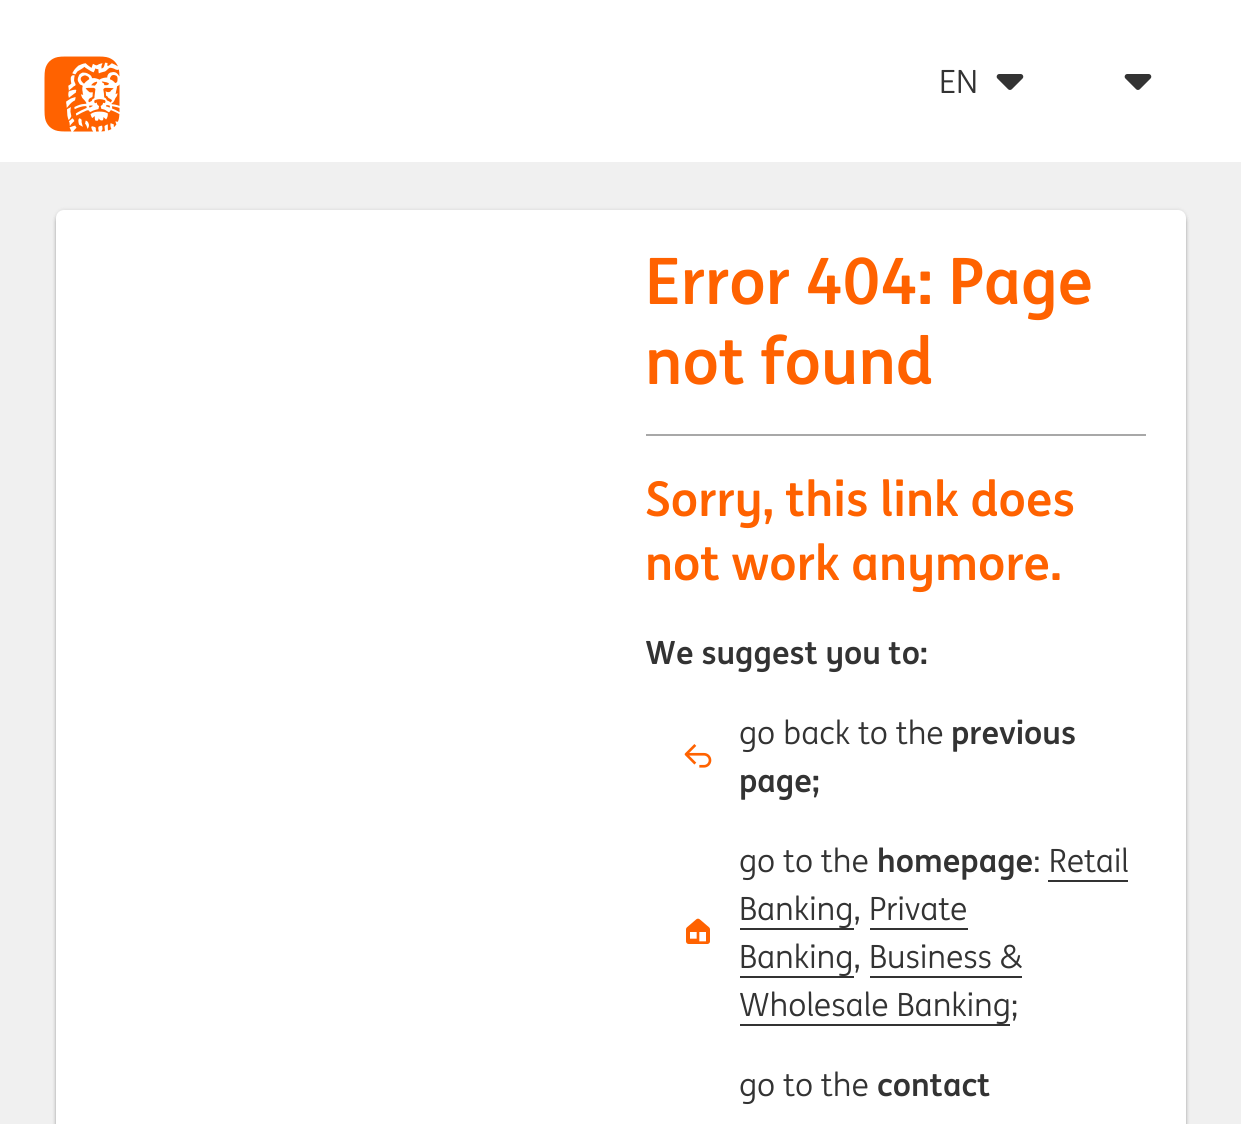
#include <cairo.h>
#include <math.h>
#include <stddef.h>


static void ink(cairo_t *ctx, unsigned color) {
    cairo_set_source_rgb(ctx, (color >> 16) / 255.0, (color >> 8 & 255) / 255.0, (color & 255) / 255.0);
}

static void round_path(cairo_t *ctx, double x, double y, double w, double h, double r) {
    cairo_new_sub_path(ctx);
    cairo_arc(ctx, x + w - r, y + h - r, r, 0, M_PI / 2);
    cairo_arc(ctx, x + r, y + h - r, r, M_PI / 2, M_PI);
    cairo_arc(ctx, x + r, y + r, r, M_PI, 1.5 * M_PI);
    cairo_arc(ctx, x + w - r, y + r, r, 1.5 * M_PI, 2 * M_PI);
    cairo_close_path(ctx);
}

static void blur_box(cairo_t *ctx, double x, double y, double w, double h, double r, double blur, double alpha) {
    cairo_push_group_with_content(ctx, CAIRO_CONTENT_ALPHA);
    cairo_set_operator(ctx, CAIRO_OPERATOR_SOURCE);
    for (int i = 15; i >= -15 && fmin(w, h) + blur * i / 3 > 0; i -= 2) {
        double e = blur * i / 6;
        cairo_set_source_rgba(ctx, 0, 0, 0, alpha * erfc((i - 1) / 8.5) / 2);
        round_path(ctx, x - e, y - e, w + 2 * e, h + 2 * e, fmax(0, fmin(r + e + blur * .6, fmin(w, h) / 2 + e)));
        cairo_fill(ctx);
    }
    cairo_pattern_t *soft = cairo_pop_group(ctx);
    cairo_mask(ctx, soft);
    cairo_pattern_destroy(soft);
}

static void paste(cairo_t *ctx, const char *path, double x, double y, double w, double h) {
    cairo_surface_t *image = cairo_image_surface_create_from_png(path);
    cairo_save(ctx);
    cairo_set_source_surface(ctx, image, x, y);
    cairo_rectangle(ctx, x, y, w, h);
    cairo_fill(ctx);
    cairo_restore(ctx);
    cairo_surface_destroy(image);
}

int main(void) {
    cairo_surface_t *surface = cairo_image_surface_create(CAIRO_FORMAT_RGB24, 1241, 1124);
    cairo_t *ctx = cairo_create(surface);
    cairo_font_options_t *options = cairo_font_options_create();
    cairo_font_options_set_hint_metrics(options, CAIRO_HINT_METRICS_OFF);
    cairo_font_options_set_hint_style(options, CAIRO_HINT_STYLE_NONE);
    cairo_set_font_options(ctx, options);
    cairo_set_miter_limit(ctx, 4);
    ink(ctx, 0xFFFFFF);
    cairo_paint(ctx);
    paste(ctx, "media/1.png", 44, 56, 76, 76);
    cairo_select_font_face(ctx, "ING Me", CAIRO_FONT_SLANT_NORMAL, CAIRO_FONT_WEIGHT_NORMAL);
    cairo_set_font_size(ctx, 32);
    ink(ctx, 0x333333);
    cairo_move_to(ctx, 939, 93);
    cairo_show_text(ctx, "EN");
    paste(ctx, "media/2.png", 996, 74, 28, 16);
    paste(ctx, "media/2.png", 1124, 74, 28, 16);
    ink(ctx, 0xF0F0F0);
    cairo_rectangle(ctx, 0, 162, 1241, 962);
    cairo_fill(ctx);
    ink(ctx, 0x000000);
    blur_box(ctx, 56, 214, 1130, 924, 8, 2, 0.24);
    blur_box(ctx, 56, 210, 1130, 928, 8, 2, 0.12);
    ink(ctx, 0xFFFFFF);
    round_path(ctx, 56, 210, 1130, 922, 8);
    cairo_fill(ctx);
    cairo_select_font_face(ctx, "ING Me", CAIRO_FONT_SLANT_NORMAL, CAIRO_FONT_WEIGHT_BOLD);
    cairo_set_font_size(ctx, 64);
    ink(ctx, 0xFF6200);
    cairo_move_to(ctx, 645, 304);
    cairo_show_text(ctx, "Error 404: Page");
    cairo_move_to(ctx, 645, 384);
    cairo_show_text(ctx, "not found");
    ink(ctx, 0xA8A8A8);
    cairo_rectangle(ctx, 646, 434, 500, 2);
    cairo_fill(ctx);
    cairo_set_font_size(ctx, 48);
    ink(ctx, 0xFF6200);
    cairo_move_to(ctx, 645, 516);
    cairo_show_text(ctx, "Sorry, this link does");
    cairo_move_to(ctx, 645, 580);
    cairo_show_text(ctx, "not work anymore.");
    cairo_set_font_size(ctx, 32);
    ink(ctx, 0x333333);
    cairo_move_to(ctx, 645, 664);
    cairo_show_text(ctx, "We suggest you to:");
    paste(ctx, "media/3.png", 684, 744, 28, 24);
    cairo_select_font_face(ctx, "ING Me", CAIRO_FONT_SLANT_NORMAL, CAIRO_FONT_WEIGHT_NORMAL);
    cairo_move_to(ctx, 739, 744);
    cairo_show_text(ctx, "go back to the");
    cairo_select_font_face(ctx, "ING Me", CAIRO_FONT_SLANT_NORMAL, CAIRO_FONT_WEIGHT_BOLD);
    cairo_move_to(ctx, 951, 744);
    cairo_show_text(ctx, "previous");
    cairo_move_to(ctx, 739, 792);
    cairo_show_text(ctx, "page;");
    paste(ctx, "media/4.png", 686, 918, 24, 26);
    cairo_select_font_face(ctx, "ING Me", CAIRO_FONT_SLANT_NORMAL, CAIRO_FONT_WEIGHT_NORMAL);
    cairo_move_to(ctx, 739, 872);
    cairo_show_text(ctx, "go to the");
    cairo_select_font_face(ctx, "ING Me", CAIRO_FONT_SLANT_NORMAL, CAIRO_FONT_WEIGHT_BOLD);
    cairo_move_to(ctx, 877, 872);
    cairo_show_text(ctx, "homepage");
    cairo_select_font_face(ctx, "ING Me", CAIRO_FONT_SLANT_NORMAL, CAIRO_FONT_WEIGHT_NORMAL);
    cairo_move_to(ctx, 1033, 872);
    cairo_show_text(ctx, ": Retail");
    cairo_rectangle(ctx, 740, 928, 114, 2);
    cairo_fill(ctx);
    cairo_move_to(ctx, 739, 920);
    cairo_show_text(ctx, "Banking, Private");
    cairo_rectangle(ctx, 1048, 880, 80, 2);
    cairo_fill(ctx);
    cairo_rectangle(ctx, 740, 976, 114, 2);
    cairo_fill(ctx);
    cairo_move_to(ctx, 739, 968);
    cairo_show_text(ctx, "Banking, Business &");
    cairo_rectangle(ctx, 870, 928, 98, 2);
    cairo_fill(ctx);
    cairo_rectangle(ctx, 740, 1024, 270, 2);
    cairo_fill(ctx);
    cairo_move_to(ctx, 739, 1016);
    cairo_show_text(ctx, "Wholesale Banking;");
    cairo_rectangle(ctx, 870, 976, 152, 2);
    cairo_fill(ctx);
    cairo_move_to(ctx, 739, 1096);
    cairo_show_text(ctx, "go to the");
    cairo_select_font_face(ctx, "ING Me", CAIRO_FONT_SLANT_NORMAL, CAIRO_FONT_WEIGHT_BOLD);
    cairo_move_to(ctx, 877, 1096);
    cairo_show_text(ctx, "contact");
    cairo_surface_write_to_png(surface, "image.png");
    cairo_font_options_destroy(options);
    cairo_destroy(ctx);
    cairo_surface_destroy(surface);
    return 0;
}
